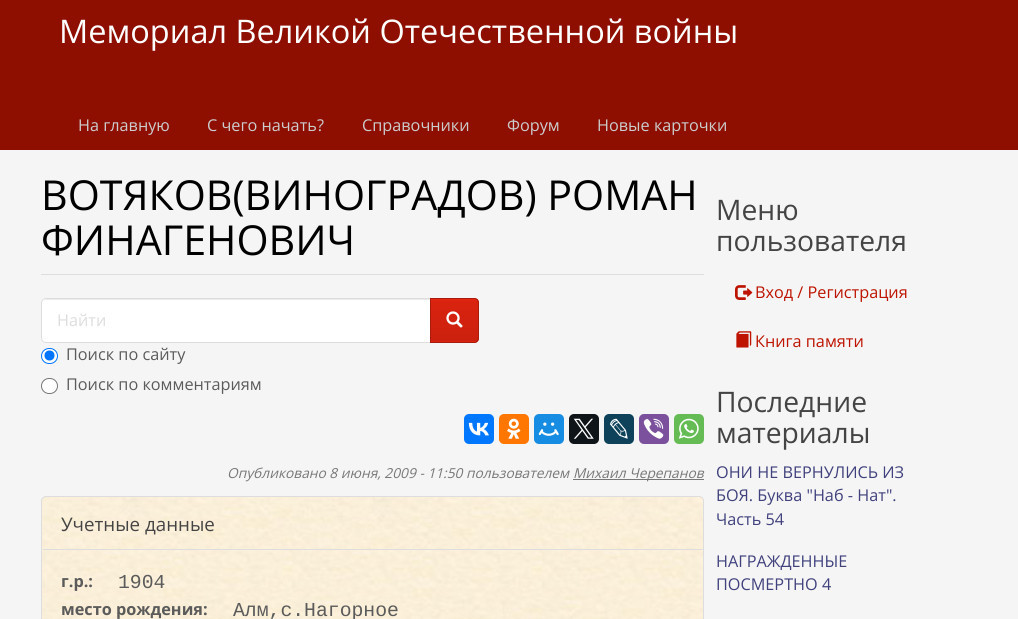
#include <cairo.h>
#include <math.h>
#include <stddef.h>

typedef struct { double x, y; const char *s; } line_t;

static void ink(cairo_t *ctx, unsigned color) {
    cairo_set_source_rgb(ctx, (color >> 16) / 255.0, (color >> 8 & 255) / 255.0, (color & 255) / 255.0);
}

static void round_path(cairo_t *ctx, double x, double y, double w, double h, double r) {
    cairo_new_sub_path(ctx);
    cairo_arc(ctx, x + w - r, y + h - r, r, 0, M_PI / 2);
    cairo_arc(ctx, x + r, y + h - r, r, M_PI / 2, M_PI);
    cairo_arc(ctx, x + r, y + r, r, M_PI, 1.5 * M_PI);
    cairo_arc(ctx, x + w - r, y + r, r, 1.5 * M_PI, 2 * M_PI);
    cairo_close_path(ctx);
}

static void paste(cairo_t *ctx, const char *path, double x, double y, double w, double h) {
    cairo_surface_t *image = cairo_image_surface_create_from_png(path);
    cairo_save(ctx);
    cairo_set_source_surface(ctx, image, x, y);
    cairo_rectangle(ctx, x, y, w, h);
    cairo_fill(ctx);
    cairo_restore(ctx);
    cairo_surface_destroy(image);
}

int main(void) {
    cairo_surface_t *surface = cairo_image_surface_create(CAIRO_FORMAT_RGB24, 1018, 619);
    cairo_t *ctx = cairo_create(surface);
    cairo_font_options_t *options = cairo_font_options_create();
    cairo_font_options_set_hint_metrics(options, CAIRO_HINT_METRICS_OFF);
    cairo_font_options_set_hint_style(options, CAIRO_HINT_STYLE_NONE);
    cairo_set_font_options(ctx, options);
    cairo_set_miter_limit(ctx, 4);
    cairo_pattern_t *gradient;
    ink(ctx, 0xF5F5F5);
    cairo_paint(ctx);
    ink(ctx, 0x8E0E00);
    cairo_rectangle(ctx, 0, 0, 1018, 150);
    cairo_fill(ctx);
    cairo_select_font_face(ctx, "Open Sans", CAIRO_FONT_SLANT_NORMAL, CAIRO_FONT_WEIGHT_NORMAL);
    cairo_set_font_size(ctx, 32.5);
    ink(ctx, 0xFFFFFF);
    cairo_move_to(ctx, 59, 43);
    cairo_show_text(ctx, "Мемориал Великой Отечественной войны");
    cairo_set_font_size(ctx, 16.25);
    ink(ctx, 0xCCCCCC);
    {
        static const line_t items[] = {
            {78, 131, "На главную"},
            {207, 131, "С чего начать?"},
            {362, 131, "Справочники"},
            {507, 131, "Форум"},
            {597, 131, "Новые карточки"},
        };
        for (size_t i = 0; i < sizeof items / sizeof *items; i++) {
            cairo_move_to(ctx, items[i].x, items[i].y);
            cairo_show_text(ctx, items[i].s);
        }
    }
    ink(ctx, 0xDDDDDD);
    cairo_rectangle(ctx, 41, 274, 663, 1);
    cairo_fill(ctx);
    cairo_set_font_size(ctx, 41.25);
    ink(ctx, 0x000000);
    cairo_move_to(ctx, 41, 210);
    cairo_show_text(ctx, "ВОТЯКОВ(ВИНОГРАДОВ) РОМАН");
    cairo_move_to(ctx, 41, 255);
    cairo_show_text(ctx, "ФИНАГЕНОВИЧ");
    ink(ctx, 0xFFFFFF);
    cairo_new_path(ctx);
    cairo_move_to(ctx, 46, 298);
    cairo_line_to(ctx, 431, 298);
    cairo_line_to(ctx, 431, 343);
    cairo_line_to(ctx, 46, 343);
    cairo_curve_to(ctx, 43, 343, 41, 341, 41, 338);
    cairo_line_to(ctx, 41, 303);
    cairo_curve_to(ctx, 41, 300, 43, 298, 46, 298);
    cairo_close_path(ctx);
    cairo_fill(ctx);
    ink(ctx, 0xECECEC);
    cairo_new_path(ctx);
    cairo_move_to(ctx, 46, 300);
    cairo_line_to(ctx, 430, 300);
    cairo_line_to(ctx, 430, 299);
    cairo_line_to(ctx, 47, 299);
    cairo_curve_to(ctx, 46, 299, 44, 300, 44, 301);
    cairo_close_path(ctx);
    cairo_fill(ctx);
    cairo_new_path(ctx);
    cairo_move_to(ctx, 46, 298.5);
    cairo_line_to(ctx, 430.5, 298.5);
    cairo_line_to(ctx, 430.5, 342.5);
    cairo_line_to(ctx, 46, 342.5);
    cairo_curve_to(ctx, 43.5, 342.5, 41.5, 340.5, 41.5, 338);
    cairo_line_to(ctx, 41.5, 303);
    cairo_curve_to(ctx, 41.5, 300.5, 43.5, 298.5, 46, 298.5);
    cairo_close_path(ctx);
    ink(ctx, 0xDDDDDD);
    cairo_set_line_width(ctx, 1);
    cairo_stroke(ctx);
    cairo_set_font_size(ctx, 16.25);
    cairo_move_to(ctx, 57, 326);
    cairo_show_text(ctx, "Найти");
    ink(ctx, 0xD9230F);
    cairo_new_path(ctx);
    cairo_move_to(ctx, 430, 298);
    cairo_line_to(ctx, 474, 298);
    cairo_curve_to(ctx, 477, 298, 479, 300, 479, 303);
    cairo_line_to(ctx, 479, 338);
    cairo_curve_to(ctx, 479, 341, 477, 343, 474, 343);
    cairo_line_to(ctx, 430, 343);
    cairo_close_path(ctx);
    cairo_fill(ctx);
    gradient = cairo_pattern_create_linear(454, 299, 454, 341);
    cairo_pattern_add_color_stop_rgba(gradient, 0, 0.906, 0.145, 0.063, 1);
    cairo_pattern_add_color_stop_rgba(gradient, 0.06, 0.851, 0.137, 0.059, 1);
    cairo_pattern_add_color_stop_rgba(gradient, 1, 0.796, 0.129, 0.055, 1);
    cairo_set_source(ctx, gradient);
    cairo_pattern_destroy(gradient);
    cairo_rectangle(ctx, 431, 299, 47, 42);
    cairo_fill(ctx);
    cairo_new_path(ctx);
    cairo_move_to(ctx, 430.5, 298.5);
    cairo_line_to(ctx, 474, 298.5);
    cairo_curve_to(ctx, 476.5, 298.5, 478.5, 300.5, 478.5, 303);
    cairo_line_to(ctx, 478.5, 338);
    cairo_curve_to(ctx, 478.5, 340.5, 476.5, 342.5, 474, 342.5);
    cairo_line_to(ctx, 430.5, 342.5);
    cairo_close_path(ctx);
    ink(ctx, 0xA91B0C);
    cairo_stroke(ctx);
    paste(ctx, "media/1.png", 446, 311, 17, 17);
    ink(ctx, 0xFFFFFF);
    round_path(ctx, 41.5, 348.5, 16, 15, 7.5);
    cairo_fill_preserve(ctx);
    ink(ctx, 0x0075FF);
    cairo_stroke(ctx);
    cairo_arc(ctx, 49.5, 355.5, 5, 0, 2 * M_PI);
    cairo_fill(ctx);
    ink(ctx, 0x5B5B5B);
    cairo_move_to(ctx, 66, 360);
    cairo_show_text(ctx, "Поиск по сайту");
    ink(ctx, 0xFFFFFF);
    round_path(ctx, 41.5, 378.5, 16, 15, 7.5);
    cairo_fill_preserve(ctx);
    ink(ctx, 0x767676);
    cairo_stroke(ctx);
    ink(ctx, 0x5B5B5B);
    cairo_move_to(ctx, 66, 390);
    cairo_show_text(ctx, "Поиск по комментариям");
    ink(ctx, 0x0077FF);
    round_path(ctx, 464, 414, 30, 30, 5);
    cairo_fill(ctx);
    paste(ctx, "media/2.png", 468, 422, 21, 14);
    ink(ctx, 0xFF7700);
    round_path(ctx, 499, 414, 30, 30, 5);
    cairo_fill(ctx);
    paste(ctx, "media/3.png", 507, 418, 14, 21);
    ink(ctx, 0x168DE2);
    round_path(ctx, 534, 414, 30, 30, 5);
    cairo_fill(ctx);
    paste(ctx, "media/4.png", 538, 422, 21, 14);
    ink(ctx, 0x0F1419);
    round_path(ctx, 569, 414, 30, 30, 5);
    cairo_fill(ctx);
    paste(ctx, "media/5.png", 573, 418, 21, 21);
    ink(ctx, 0x0D425A);
    round_path(ctx, 604, 414, 30, 30, 5);
    cairo_fill(ctx);
    paste(ctx, "media/6.png", 610, 418, 18, 21);
    ink(ctx, 0x7B519D);
    round_path(ctx, 639, 414, 30, 30, 5);
    cairo_fill(ctx);
    paste(ctx, "media/7.png", 643, 418, 21, 21);
    ink(ctx, 0x65BC54);
    round_path(ctx, 674, 414, 30, 30, 5);
    cairo_fill(ctx);
    paste(ctx, "media/8.png", 678, 418, 21, 21);
    cairo_select_font_face(ctx, "Open Sans", CAIRO_FONT_SLANT_ITALIC, CAIRO_FONT_WEIGHT_NORMAL);
    cairo_set_font_size(ctx, 13.75);
    ink(ctx, 0x777777);
    cairo_move_to(ctx, 227, 478);
    cairo_show_text(ctx, "Опубликовано 8 июня, 2009 - 11:50 пользователем");
    cairo_rectangle(ctx, 573, 479, 131, 1);
    cairo_fill(ctx);
    cairo_move_to(ctx, 573, 478);
    cairo_show_text(ctx, "Михаил Черепанов");
    paste(ctx, "media/9.png", 41, 496, 663, 123);
    round_path(ctx, 41.5, 496.5, 662, 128, 4.5);
    ink(ctx, 0xDDDDDD);
    cairo_stroke(ctx);
    cairo_rectangle(ctx, 43, 549, 660, 1);
    cairo_fill(ctx);
    cairo_select_font_face(ctx, "Open Sans", CAIRO_FONT_SLANT_NORMAL, CAIRO_FONT_WEIGHT_NORMAL);
    cairo_set_font_size(ctx, 18.75);
    ink(ctx, 0x444444);
    cairo_move_to(ctx, 61, 531);
    cairo_show_text(ctx, "Учетные данные");
    cairo_select_font_face(ctx, "Open Sans", CAIRO_FONT_SLANT_NORMAL, CAIRO_FONT_WEIGHT_BOLD);
    cairo_set_font_size(ctx, 16.25);
    ink(ctx, 0x5B5B5B);
    cairo_move_to(ctx, 61, 587);
    cairo_show_text(ctx, "г.р.:");
    cairo_select_font_face(ctx, "Liberation Mono", CAIRO_FONT_SLANT_NORMAL, CAIRO_FONT_WEIGHT_NORMAL);
    cairo_set_font_size(ctx, 19.75);
    cairo_move_to(ctx, 118, 588);
    cairo_show_text(ctx, "1904");
    cairo_select_font_face(ctx, "Open Sans", CAIRO_FONT_SLANT_NORMAL, CAIRO_FONT_WEIGHT_BOLD);
    cairo_set_font_size(ctx, 16.25);
    cairo_move_to(ctx, 61, 615);
    cairo_show_text(ctx, "место рождения:");
    cairo_select_font_face(ctx, "Liberation Mono", CAIRO_FONT_SLANT_NORMAL, CAIRO_FONT_WEIGHT_NORMAL);
    cairo_set_font_size(ctx, 19.75);
    cairo_move_to(ctx, 233, 616);
    cairo_show_text(ctx, "Алм,с.Нагорное");
    cairo_select_font_face(ctx, "Open Sans", CAIRO_FONT_SLANT_NORMAL, CAIRO_FONT_WEIGHT_NORMAL);
    cairo_set_font_size(ctx, 28.25);
    ink(ctx, 0x444444);
    cairo_move_to(ctx, 716, 220);
    cairo_show_text(ctx, "Меню");
    cairo_move_to(ctx, 716, 251);
    cairo_show_text(ctx, "пользователя");
    paste(ctx, "media/10.png", 735, 285, 18, 15);
    cairo_set_font_size(ctx, 16.25);
    ink(ctx, 0xBD1300);
    cairo_move_to(ctx, 755, 298);
    cairo_show_text(ctx, "Вход / Регистрация");
    paste(ctx, "media/11.png", 736, 331, 16, 17);
    cairo_move_to(ctx, 755, 347);
    cairo_show_text(ctx, "Книга памяти");
    cairo_set_font_size(ctx, 28.25);
    ink(ctx, 0x444444);
    cairo_move_to(ctx, 716, 412);
    cairo_show_text(ctx, "Последние");
    cairo_move_to(ctx, 716, 443);
    cairo_show_text(ctx, "материалы");
    cairo_set_font_size(ctx, 16.25);
    ink(ctx, 0x40417D);
    {
        static const line_t items[] = {
            {716, 478, "ОНИ НЕ ВЕРНУЛИСЬ ИЗ"},
            {716, 501, "БОЯ. Буква \"Наб - Нат\"."},
            {716, 525, "Часть 54"},
            {716, 567, "НАГРАЖДЕННЫЕ"},
            {716, 590, "ПОСМЕРТНО 4"},
        };
        for (size_t i = 0; i < sizeof items / sizeof *items; i++) {
            cairo_move_to(ctx, items[i].x, items[i].y);
            cairo_show_text(ctx, items[i].s);
        }
    }
    cairo_surface_write_to_png(surface, "image.png");
    cairo_font_options_destroy(options);
    cairo_destroy(ctx);
    cairo_surface_destroy(surface);
    return 0;
}
